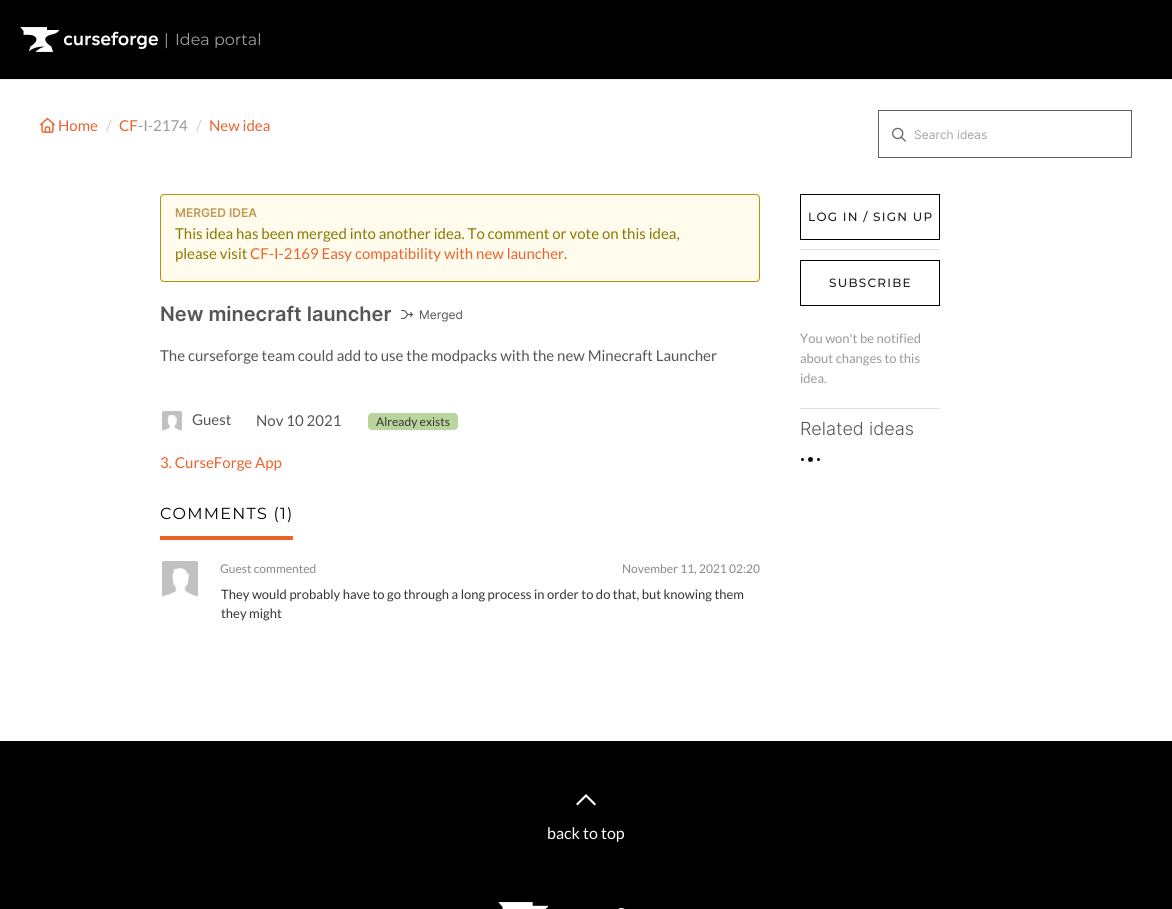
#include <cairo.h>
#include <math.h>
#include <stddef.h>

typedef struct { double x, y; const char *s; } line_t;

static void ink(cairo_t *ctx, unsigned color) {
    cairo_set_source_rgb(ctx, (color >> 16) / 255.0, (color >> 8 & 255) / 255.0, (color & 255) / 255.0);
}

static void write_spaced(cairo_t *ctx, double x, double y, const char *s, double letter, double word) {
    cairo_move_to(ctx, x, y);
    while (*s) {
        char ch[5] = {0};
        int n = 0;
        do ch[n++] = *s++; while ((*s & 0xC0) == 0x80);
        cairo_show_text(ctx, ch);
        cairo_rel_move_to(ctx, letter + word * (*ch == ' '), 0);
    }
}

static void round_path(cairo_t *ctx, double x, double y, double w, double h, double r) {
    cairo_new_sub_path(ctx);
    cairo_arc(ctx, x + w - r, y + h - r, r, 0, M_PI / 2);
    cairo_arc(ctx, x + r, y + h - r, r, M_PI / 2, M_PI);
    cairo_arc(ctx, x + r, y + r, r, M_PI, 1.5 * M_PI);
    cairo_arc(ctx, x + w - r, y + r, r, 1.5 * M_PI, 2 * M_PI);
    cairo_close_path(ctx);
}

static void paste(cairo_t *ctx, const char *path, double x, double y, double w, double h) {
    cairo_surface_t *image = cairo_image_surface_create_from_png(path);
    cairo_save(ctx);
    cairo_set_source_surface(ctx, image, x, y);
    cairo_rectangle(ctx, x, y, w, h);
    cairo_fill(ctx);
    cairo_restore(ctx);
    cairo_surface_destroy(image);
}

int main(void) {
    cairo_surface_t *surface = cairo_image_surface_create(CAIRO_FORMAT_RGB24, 1172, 909);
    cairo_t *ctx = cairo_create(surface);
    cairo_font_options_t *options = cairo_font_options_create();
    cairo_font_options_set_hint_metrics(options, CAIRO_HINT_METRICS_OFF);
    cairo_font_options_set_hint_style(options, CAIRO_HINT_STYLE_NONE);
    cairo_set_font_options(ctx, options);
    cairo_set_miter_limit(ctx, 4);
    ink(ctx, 0xFFFFFF);
    cairo_paint(ctx);
    ink(ctx, 0x000000);
    cairo_rectangle(ctx, 0, 0, 1172, 79);
    cairo_fill(ctx);
    ink(ctx, 0xEEEEEE);
    cairo_rectangle(ctx, 0, 79, 1172, 1);
    cairo_fill(ctx);
    paste(ctx, "media/1.png", 20, 27, 138, 25);
    cairo_select_font_face(ctx, "Montserrat", CAIRO_FONT_SLANT_NORMAL, CAIRO_FONT_WEIGHT_NORMAL);
    cairo_set_font_size(ctx, 16);
    ink(ctx, 0x9F9F9F);
    cairo_move_to(ctx, 164, 45);
    cairo_show_text(ctx, "|");
    cairo_move_to(ctx, 175, 45);
    cairo_show_text(ctx, "Idea portal");
    paste(ctx, "media/2.png", 40, 117, 15, 16);
    cairo_select_font_face(ctx, "Lato", CAIRO_FONT_SLANT_NORMAL, CAIRO_FONT_WEIGHT_NORMAL);
    cairo_set_font_size(ctx, 15);
    ink(ctx, 0xEB622B);
    cairo_move_to(ctx, 58, 131);
    cairo_show_text(ctx, "Home");
    ink(ctx, 0xCCCCCC);
    cairo_move_to(ctx, 106, 131);
    cairo_show_text(ctx, "/");
    ink(ctx, 0xEB622B);
    cairo_move_to(ctx, 119, 131);
    cairo_show_text(ctx, "CF");
    ink(ctx, 0x999999);
    cairo_move_to(ctx, 138, 131);
    cairo_show_text(ctx, "-I-2174");
    ink(ctx, 0xCCCCCC);
    cairo_move_to(ctx, 196, 131);
    cairo_show_text(ctx, "/");
    ink(ctx, 0xEB622B);
    cairo_move_to(ctx, 209, 131);
    cairo_show_text(ctx, "New idea");
    cairo_rectangle(ctx, 878.5, 110.5, 253, 47);
    ink(ctx, 0x606060);
    cairo_set_line_width(ctx, 1);
    cairo_stroke(ctx);
    paste(ctx, "media/3.png", 892, 127, 14, 15);
    cairo_select_font_face(ctx, "Inter", CAIRO_FONT_SLANT_NORMAL, CAIRO_FONT_WEIGHT_NORMAL);
    cairo_set_font_size(ctx, 12);
    ink(ctx, 0xA5A5A5);
    cairo_move_to(ctx, 914, 139);
    cairo_show_text(ctx, "Search ideas");
    ink(ctx, 0xFFFCEE);
    round_path(ctx, 160.5, 194.5, 599, 87, 3.5);
    cairo_fill_preserve(ctx);
    ink(ctx, 0xB09506);
    cairo_stroke(ctx);
    cairo_select_font_face(ctx, "Inter SemiBold", CAIRO_FONT_SLANT_NORMAL, CAIRO_FONT_WEIGHT_NORMAL);
    ink(ctx, 0xC09853);
    cairo_move_to(ctx, 175, 217);
    cairo_show_text(ctx, "MERGED IDEA");
    cairo_select_font_face(ctx, "Lato", CAIRO_FONT_SLANT_NORMAL, CAIRO_FONT_WEIGHT_NORMAL);
    cairo_set_font_size(ctx, 15);
    ink(ctx, 0x8D7700);
    cairo_move_to(ctx, 175, 239);
    cairo_show_text(ctx, "This idea has been merged into another idea. To comment or vote on this idea,");
    cairo_move_to(ctx, 175, 259);
    cairo_show_text(ctx, "please visit");
    ink(ctx, 0xEB622B);
    cairo_move_to(ctx, 250, 259);
    cairo_show_text(ctx, "CF-I-2169 Easy compatibility with new launcher");
    ink(ctx, 0x8D7700);
    cairo_move_to(ctx, 564, 259);
    cairo_show_text(ctx, ".");
    cairo_select_font_face(ctx, "Inter SemiBold", CAIRO_FONT_SLANT_NORMAL, CAIRO_FONT_WEIGHT_NORMAL);
    cairo_set_font_size(ctx, 20);
    ink(ctx, 0x555555);
    cairo_move_to(ctx, 160, 321);
    cairo_show_text(ctx, "New minecraft launcher");
    paste(ctx, "media/4.png", 401, 310, 12, 9);
    cairo_select_font_face(ctx, "Inter", CAIRO_FONT_SLANT_NORMAL, CAIRO_FONT_WEIGHT_NORMAL);
    cairo_set_font_size(ctx, 12);
    cairo_move_to(ctx, 419, 319);
    cairo_show_text(ctx, "Merged");
    cairo_select_font_face(ctx, "Lato", CAIRO_FONT_SLANT_NORMAL, CAIRO_FONT_WEIGHT_NORMAL);
    cairo_set_font_size(ctx, 15);
    cairo_move_to(ctx, 160, 361);
    cairo_show_text(ctx, "The curseforge team could add to use the modpacks with the new Minecraft Launcher");
    paste(ctx, "media/5.png", 162, 411, 20, 20);
    cairo_move_to(ctx, 192, 425);
    cairo_show_text(ctx, "Guest");
    cairo_move_to(ctx, 256, 426);
    cairo_show_text(ctx, "Nov 10 2021");
    ink(ctx, 0xB9D49C);
    round_path(ctx, 368, 413, 90, 17, 4);
    cairo_fill(ctx);
    cairo_set_font_size(ctx, 12);
    ink(ctx, 0x333333);
    cairo_move_to(ctx, 376, 426);
    cairo_show_text(ctx, "Already exists");
    cairo_set_font_size(ctx, 15);
    ink(ctx, 0xEB622B);
    cairo_move_to(ctx, 160, 468);
    cairo_show_text(ctx, "3. CurseForge App");
    cairo_select_font_face(ctx, "Montserrat", CAIRO_FONT_SLANT_NORMAL, CAIRO_FONT_WEIGHT_NORMAL);
    cairo_set_font_size(ctx, 16);
    ink(ctx, 0x000000);
    write_spaced(ctx, 160, 519, "COMMENTS (1)", 1.25, 0);
    ink(ctx, 0xEB622B);
    cairo_rectangle(ctx, 160, 536, 133, 4);
    cairo_fill(ctx);
    paste(ctx, "media/6.png", 162, 561, 36, 36);
    cairo_select_font_face(ctx, "Lato", CAIRO_FONT_SLANT_NORMAL, CAIRO_FONT_WEIGHT_NORMAL);
    cairo_set_font_size(ctx, 12);
    ink(ctx, 0x888888);
    cairo_move_to(ctx, 220, 573);
    cairo_show_text(ctx, "Guest commented");
    cairo_move_to(ctx, 622, 573);
    cairo_show_text(ctx, "November 11, 2021 02:20");
    cairo_set_font_size(ctx, 13);
    ink(ctx, 0x333333);
    cairo_move_to(ctx, 221, 599);
    cairo_show_text(ctx, "They would probably have to go through a long process in order to do that, but knowing them");
    cairo_move_to(ctx, 221, 618);
    cairo_show_text(ctx, "they might");
    ink(ctx, 0xE1E1E1);
    cairo_rectangle(ctx, 800, 249, 140, 1);
    cairo_fill(ctx);
    cairo_rectangle(ctx, 800.5, 194.5, 139, 45);
    ink(ctx, 0x000000);
    cairo_stroke(ctx);
    cairo_select_font_face(ctx, "Montserrat Medium", CAIRO_FONT_SLANT_NORMAL, CAIRO_FONT_WEIGHT_NORMAL);
    cairo_set_font_size(ctx, 12);
    ink(ctx, 0x202020);
    write_spaced(ctx, 808, 221, "LOG IN / SIGN UP", 1.25, 0);
    ink(ctx, 0xE1E1E1);
    cairo_rectangle(ctx, 800, 408, 140, 1);
    cairo_fill(ctx);
    cairo_rectangle(ctx, 800.5, 260.5, 139, 45);
    ink(ctx, 0x000000);
    cairo_stroke(ctx);
    ink(ctx, 0x202020);
    write_spaced(ctx, 829, 287, "SUBSCRIBE", 1.25, 0);
    cairo_select_font_face(ctx, "Lato", CAIRO_FONT_SLANT_NORMAL, CAIRO_FONT_WEIGHT_NORMAL);
    cairo_set_font_size(ctx, 13);
    ink(ctx, 0x999999);
    {
        static const line_t items[] = {
            {800, 343, "You won't be notified"},
            {800, 363, "about changes to this"},
            {800, 383, "idea."},
        };
        for (size_t i = 0; i < sizeof items / sizeof *items; i++) {
            cairo_move_to(ctx, items[i].x, items[i].y);
            cairo_show_text(ctx, items[i].s);
        }
    }
    cairo_select_font_face(ctx, "Inter Light", CAIRO_FONT_SLANT_NORMAL, CAIRO_FONT_WEIGHT_NORMAL);
    cairo_set_font_size(ctx, 18);
    ink(ctx, 0x555555);
    cairo_move_to(ctx, 800, 435);
    cairo_show_text(ctx, "Related ideas");
    paste(ctx, "media/7.png", 800, 457, 21, 5);
    ink(ctx, 0x000000);
    cairo_rectangle(ctx, 0, 741, 1172, 168);
    cairo_fill(ctx);
    ink(ctx, 0xFFFFFF);
    cairo_set_fill_rule(ctx, CAIRO_FILL_RULE_EVEN_ODD);
    cairo_new_path(ctx);
    cairo_move_to(ctx, 576, 804);
    cairo_line_to(ctx, 577.5, 805.5);
    cairo_line_to(ctx, 586, 797);
    cairo_line_to(ctx, 594.5, 805.5);
    cairo_line_to(ctx, 596, 804);
    cairo_line_to(ctx, 586, 794);
    cairo_close_path(ctx);
    cairo_fill(ctx);
    cairo_select_font_face(ctx, "Lato", CAIRO_FONT_SLANT_NORMAL, CAIRO_FONT_WEIGHT_NORMAL);
    cairo_set_font_size(ctx, 16);
    cairo_move_to(ctx, 547, 839);
    cairo_show_text(ctx, "back to top");
    paste(ctx, "media/8.png", 498, 902, 127, 7);
    cairo_surface_write_to_png(surface, "image.png");
    cairo_font_options_destroy(options);
    cairo_destroy(ctx);
    cairo_surface_destroy(surface);
    return 0;
}
